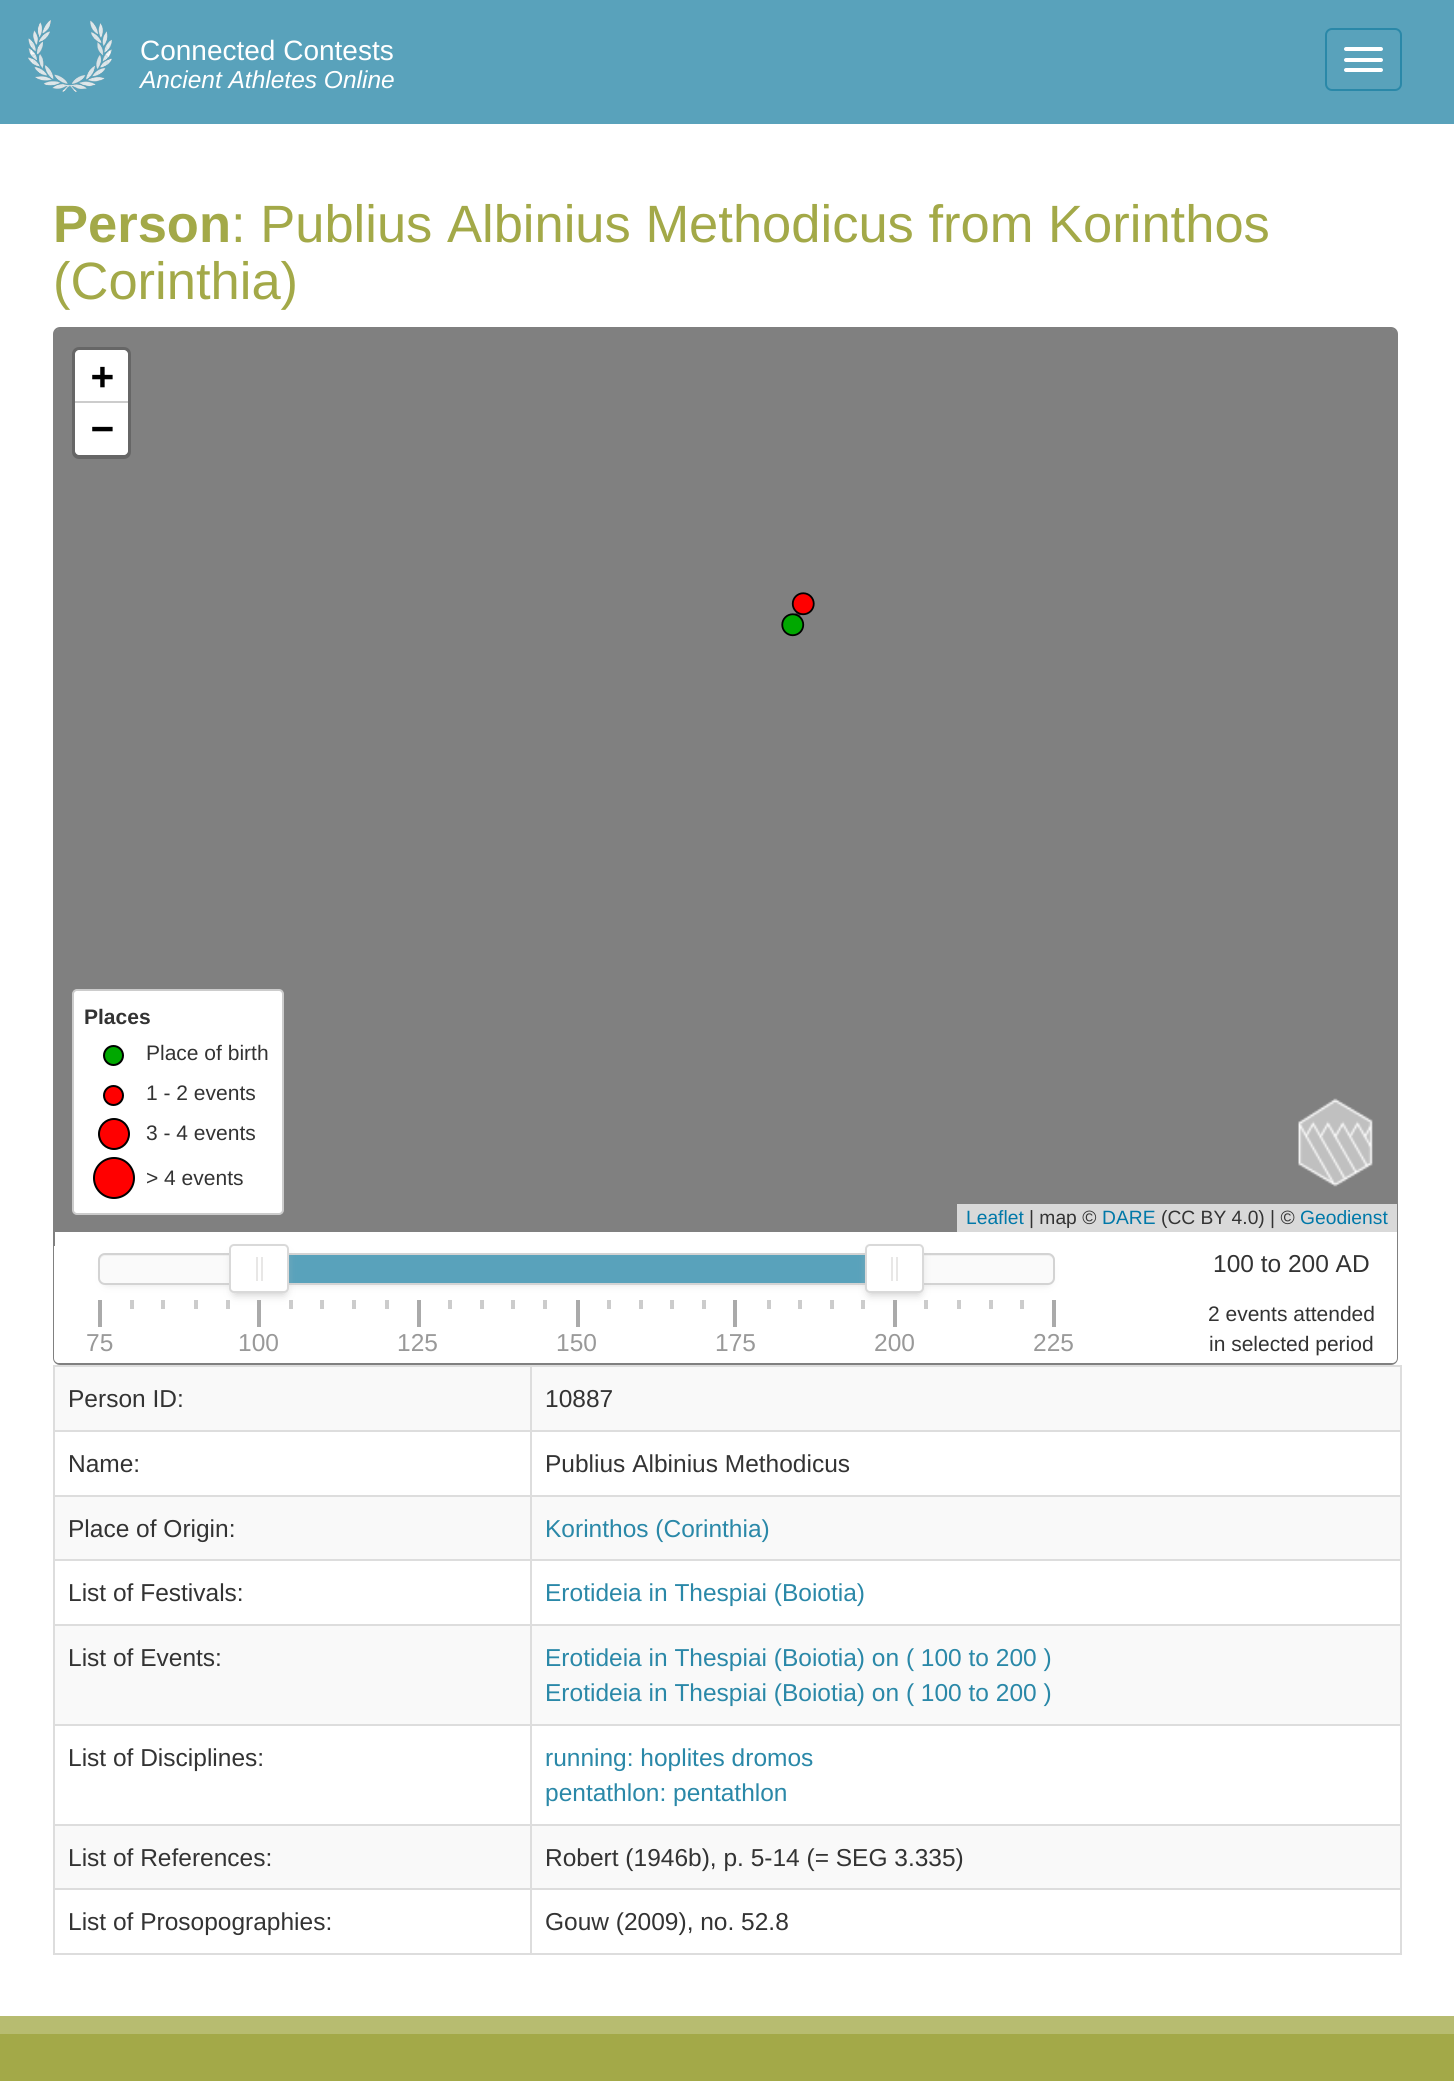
#include <cairo.h>
#include <math.h>
#include <stddef.h>

typedef struct { double x, y; const char *s; } line_t;
typedef struct { double x, y, w, h; unsigned color; } box_t;

static void ink(cairo_t *ctx, unsigned color) {
    cairo_set_source_rgb(ctx, (color >> 16) / 255.0, (color >> 8 & 255) / 255.0, (color & 255) / 255.0);
}

static void round_path(cairo_t *ctx, double x, double y, double w, double h, double r) {
    cairo_new_sub_path(ctx);
    cairo_arc(ctx, x + w - r, y + h - r, r, 0, M_PI / 2);
    cairo_arc(ctx, x + r, y + h - r, r, M_PI / 2, M_PI);
    cairo_arc(ctx, x + r, y + r, r, M_PI, 1.5 * M_PI);
    cairo_arc(ctx, x + w - r, y + r, r, 1.5 * M_PI, 2 * M_PI);
    cairo_close_path(ctx);
}

static void blur_box(cairo_t *ctx, double x, double y, double w, double h, double r, double blur, double alpha) {
    cairo_push_group_with_content(ctx, CAIRO_CONTENT_ALPHA);
    cairo_set_operator(ctx, CAIRO_OPERATOR_SOURCE);
    for (int i = 15; i >= -15 && fmin(w, h) + blur * i / 3 > 0; i -= 2) {
        double e = blur * i / 6;
        cairo_set_source_rgba(ctx, 0, 0, 0, alpha * erfc((i - 1) / 8.5) / 2);
        round_path(ctx, x - e, y - e, w + 2 * e, h + 2 * e, fmax(0, fmin(r + e + blur * .6, fmin(w, h) / 2 + e)));
        cairo_fill(ctx);
    }
    cairo_pattern_t *soft = cairo_pop_group(ctx);
    cairo_mask(ctx, soft);
    cairo_pattern_destroy(soft);
}

static void paste(cairo_t *ctx, const char *path, double x, double y, double w, double h) {
    cairo_surface_t *image = cairo_image_surface_create_from_png(path);
    cairo_save(ctx);
    cairo_set_source_surface(ctx, image, x, y);
    cairo_rectangle(ctx, x, y, w, h);
    cairo_fill(ctx);
    cairo_restore(ctx);
    cairo_surface_destroy(image);
}

int main(void) {
    cairo_surface_t *surface = cairo_image_surface_create(CAIRO_FORMAT_RGB24, 1454, 2081);
    cairo_t *ctx = cairo_create(surface);
    cairo_font_options_t *options = cairo_font_options_create();
    cairo_font_options_set_hint_metrics(options, CAIRO_HINT_METRICS_OFF);
    cairo_font_options_set_hint_style(options, CAIRO_HINT_STYLE_NONE);
    cairo_set_font_options(ctx, options);
    cairo_set_miter_limit(ctx, 4);
    ink(ctx, 0xFFFFFF);
    cairo_paint(ctx);
    ink(ctx, 0x59A2BB);
    cairo_rectangle(ctx, 0, 0, 1454, 124);
    cairo_fill(ctx);
    paste(ctx, "media/1.png", 28, 20, 84, 73);
    cairo_select_font_face(ctx, "Liberation Sans", CAIRO_FONT_SLANT_NORMAL, CAIRO_FONT_WEIGHT_NORMAL);
    cairo_set_font_size(ctx, 28);
    ink(ctx, 0xFFFFFF);
    cairo_move_to(ctx, 140, 60);
    cairo_show_text(ctx, "Connected Contests");
    cairo_select_font_face(ctx, "Liberation Sans", CAIRO_FONT_SLANT_ITALIC, CAIRO_FONT_WEIGHT_NORMAL);
    cairo_set_font_size(ctx, 24.5);
    cairo_move_to(ctx, 140, 88);
    cairo_show_text(ctx, "Ancient Athletes Online");
    round_path(ctx, 1326, 29, 75, 61, 6);
    ink(ctx, 0x2A88A8);
    cairo_stroke(ctx);
    ink(ctx, 0xFFFFFF);
    round_path(ctx, 1344, 47, 39, 4, 2);
    cairo_fill(ctx);
    round_path(ctx, 1344, 58, 39, 4, 2);
    cairo_fill(ctx);
    round_path(ctx, 1344, 68, 39, 4, 2);
    cairo_fill(ctx);
    cairo_select_font_face(ctx, "Liberation Sans", CAIRO_FONT_SLANT_NORMAL, CAIRO_FONT_WEIGHT_BOLD);
    cairo_set_font_size(ctx, 52.5);
    ink(ctx, 0xA3A948);
    cairo_move_to(ctx, 53, 242);
    cairo_show_text(ctx, "Person");
    cairo_select_font_face(ctx, "Liberation Sans", CAIRO_FONT_SLANT_NORMAL, CAIRO_FONT_WEIGHT_NORMAL);
    cairo_move_to(ctx, 231, 242);
    cairo_show_text(ctx, ": Publius Albinius Methodicus from Korinthos");
    cairo_move_to(ctx, 53, 299);
    cairo_show_text(ctx, "(Corinthia)");
    round_path(ctx, 54, 328, 1343, 1036, 6);
    ink(ctx, 0x808080);
    cairo_stroke(ctx);
    cairo_new_path(ctx);
    cairo_move_to(ctx, 59, 329);
    cairo_line_to(ctx, 1392, 329);
    cairo_curve_to(ctx, 1395, 329, 1397, 331, 1397, 334);
    cairo_line_to(ctx, 1397, 1232);
    cairo_line_to(ctx, 54, 1232);
    cairo_line_to(ctx, 54, 334);
    cairo_curve_to(ctx, 54, 331, 56, 329, 59, 329);
    cairo_close_path(ctx);
    cairo_fill(ctx);
    round_path(ctx, 74, 349, 55, 108, 5);
    ink(ctx, 0x666666);
    cairo_set_line_width(ctx, 4);
    cairo_stroke(ctx);
    ink(ctx, 0xFFFFFF);
    cairo_new_path(ctx);
    cairo_move_to(ctx, 79, 350);
    cairo_line_to(ctx, 124, 350);
    cairo_curve_to(ctx, 126, 350, 128, 352, 128, 354);
    cairo_line_to(ctx, 128, 403);
    cairo_line_to(ctx, 75, 403);
    cairo_line_to(ctx, 75, 354);
    cairo_curve_to(ctx, 75, 352, 77, 350, 79, 350);
    cairo_close_path(ctx);
    cairo_fill(ctx);
    ink(ctx, 0xCCCCCC);
    cairo_rectangle(ctx, 75, 401, 53, 2);
    cairo_fill(ctx);
    cairo_select_font_face(ctx, "DejaVu Sans Mono", CAIRO_FONT_SLANT_NORMAL, CAIRO_FONT_WEIGHT_BOLD);
    cairo_set_font_size(ctx, 38);
    ink(ctx, 0x000000);
    cairo_move_to(ctx, 91, 389);
    cairo_show_text(ctx, "+");
    ink(ctx, 0xFFFFFF);
    cairo_new_path(ctx);
    cairo_move_to(ctx, 75, 403);
    cairo_line_to(ctx, 128, 403);
    cairo_line_to(ctx, 128, 451);
    cairo_curve_to(ctx, 128, 453, 126, 455, 124, 455);
    cairo_line_to(ctx, 79, 455);
    cairo_curve_to(ctx, 77, 455, 75, 453, 75, 451);
    cairo_close_path(ctx);
    cairo_fill(ctx);
    ink(ctx, 0x000000);
    cairo_move_to(ctx, 91, 441);
    cairo_show_text(ctx, "−");
    ink(ctx, 0xFFFFFF);
    round_path(ctx, 73, 990, 210, 224, 4);
    cairo_fill_preserve(ctx);
    ink(ctx, 0xCCCCCC);
    cairo_set_line_width(ctx, 2);
    cairo_stroke(ctx);
    cairo_select_font_face(ctx, "Liberation Sans", CAIRO_FONT_SLANT_NORMAL, CAIRO_FONT_WEIGHT_BOLD);
    cairo_set_font_size(ctx, 21);
    ink(ctx, 0x333333);
    cairo_move_to(ctx, 84, 1024);
    cairo_show_text(ctx, "Places");
    ink(ctx, 0x00A800);
    cairo_new_path(ctx);
    cairo_arc(ctx, 113.5, 1055.5, 9.5, 0, 2 * M_PI);
    cairo_fill_preserve(ctx);
    ink(ctx, 0x000000);
    cairo_stroke(ctx);
    cairo_select_font_face(ctx, "Liberation Sans", CAIRO_FONT_SLANT_NORMAL, CAIRO_FONT_WEIGHT_NORMAL);
    ink(ctx, 0x333333);
    cairo_move_to(ctx, 146, 1060);
    cairo_show_text(ctx, "Place of birth");
    ink(ctx, 0xFF0000);
    cairo_new_path(ctx);
    cairo_arc(ctx, 113.5, 1095.5, 9.5, 0, 2 * M_PI);
    cairo_fill_preserve(ctx);
    ink(ctx, 0x000000);
    cairo_stroke(ctx);
    ink(ctx, 0x333333);
    cairo_move_to(ctx, 146, 1100);
    cairo_show_text(ctx, "1 - 2 events");
    ink(ctx, 0xFF0000);
    cairo_new_path(ctx);
    cairo_arc(ctx, 114, 1134, 15, 0, 2 * M_PI);
    cairo_fill_preserve(ctx);
    ink(ctx, 0x000000);
    cairo_stroke(ctx);
    ink(ctx, 0x333333);
    cairo_move_to(ctx, 146, 1140);
    cairo_show_text(ctx, "3 - 4 events");
    ink(ctx, 0xFF0000);
    cairo_new_path(ctx);
    cairo_arc(ctx, 114, 1178, 20, 0, 2 * M_PI);
    cairo_fill_preserve(ctx);
    ink(ctx, 0x000000);
    cairo_stroke(ctx);
    ink(ctx, 0x333333);
    cairo_move_to(ctx, 146, 1185);
    cairo_show_text(ctx, "> 4 events");
    paste(ctx, "media/2.png", 1298, 1098, 75, 89);
    ink(ctx, 0xD9D9D9);
    cairo_rectangle(ctx, 957, 1204, 440, 28);
    cairo_fill(ctx);
    cairo_set_font_size(ctx, 19.25);
    ink(ctx, 0x0078A8);
    cairo_move_to(ctx, 966, 1224);
    cairo_show_text(ctx, "Leaflet");
    ink(ctx, 0x333333);
    cairo_move_to(ctx, 1029, 1224);
    cairo_show_text(ctx, "| map ©");
    ink(ctx, 0x0078A8);
    cairo_move_to(ctx, 1102, 1224);
    cairo_show_text(ctx, "DARE");
    ink(ctx, 0x333333);
    cairo_move_to(ctx, 1161, 1224);
    cairo_show_text(ctx, "(CC BY 4.0) | ©");
    ink(ctx, 0x0078A8);
    cairo_move_to(ctx, 1300, 1224);
    cairo_show_text(ctx, "Geodienst");
    paste(ctx, "media/3.png", 781, 592, 34, 45);
    ink(ctx, 0xFFFFFF);
    cairo_new_path(ctx);
    cairo_move_to(ctx, 54, 1246);
    cairo_line_to(ctx, 1099, 1246);
    cairo_line_to(ctx, 1099, 1363);
    cairo_line_to(ctx, 59, 1363);
    cairo_curve_to(ctx, 56, 1363, 54, 1361, 54, 1358);
    cairo_close_path(ctx);
    cairo_fill(ctx);
    ink(ctx, 0xBBBBBB);
    blur_box(ctx, 107, 1267, 940, 14, 0, 5, 1);
    ink(ctx, 0xFAFAFA);
    round_path(ctx, 98, 1253, 957, 32, 7);
    cairo_fill(ctx);
    ink(ctx, 0xF0F0F0);
    cairo_new_path(ctx);
    cairo_move_to(ctx, 105, 1256);
    cairo_line_to(ctx, 1048, 1256);
    cairo_curve_to(ctx, 1051, 1256, 1054, 1259, 1054, 1262);
    cairo_curve_to(ctx, 1054, 1259, 1053, 1255, 1049, 1255);
    cairo_line_to(ctx, 105, 1255);
    cairo_curve_to(ctx, 101, 1255, 100, 1259, 100, 1262);
    cairo_curve_to(ctx, 100, 1259, 102, 1256, 105, 1256);
    cairo_close_path(ctx);
    cairo_fill(ctx);
    round_path(ctx, 99, 1254, 955, 30, 6);
    ink(ctx, 0xD3D3D3);
    cairo_stroke(ctx);
    {
        static const box_t items[] = {
            {289, 1255, 576, 28, 0x59A2BB},
            {226, 1300, 4, 9, 0xCCCCCC},
            {257, 1300, 4, 27, 0xAAAAAA},
            {289, 1300, 4, 9, 0xCCCCCC},
        };
        for (size_t i = 0; i < sizeof items / sizeof *items; i++) {
            ink(ctx, items[i].color);
            cairo_rectangle(ctx, items[i].x, items[i].y, items[i].w, items[i].h);
            cairo_fill(ctx);
        }
    }
    ink(ctx, 0xBBBBBB);
    blur_box(ctx, 235, 1255, 49, 38, 0, 5, 1);
    ink(ctx, 0xFFFFFF);
    round_path(ctx, 230, 1245, 58, 47, 4);
    cairo_fill_preserve(ctx);
    ink(ctx, 0xD9D9D9);
    cairo_stroke(ctx);
    {
        static const box_t items[] = {
            {256, 1257, 2, 24, 0xE8E7E6},
            {261, 1257, 2, 24, 0xE8E7E6},
            {861, 1300, 4, 9, 0xCCCCCC},
            {893, 1300, 4, 27, 0xAAAAAA},
            {924, 1300, 4, 9, 0xCCCCCC},
        };
        for (size_t i = 0; i < sizeof items / sizeof *items; i++) {
            ink(ctx, items[i].color);
            cairo_rectangle(ctx, items[i].x, items[i].y, items[i].w, items[i].h);
            cairo_fill(ctx);
        }
    }
    ink(ctx, 0xBBBBBB);
    blur_box(ctx, 870, 1255, 49, 38, 0, 5, 1);
    ink(ctx, 0xFFFFFF);
    round_path(ctx, 866, 1245, 57, 47, 4);
    cairo_fill_preserve(ctx);
    ink(ctx, 0xD9D9D9);
    cairo_stroke(ctx);
    {
        static const box_t items[] = {
            {891, 1257, 2, 24, 0xE8E7E6},
            {896, 1257, 2, 24, 0xE8E7E6},
            {98, 1300, 4, 27, 0xAAAAAA},
            {130, 1300, 4, 9, 0xCCCCCC},
            {161, 1300, 4, 9, 0xCCCCCC},
            {194, 1300, 4, 9, 0xCCCCCC},
            {320, 1300, 4, 9, 0xCCCCCC},
            {352, 1300, 4, 9, 0xCCCCCC},
            {385, 1300, 4, 9, 0xCCCCCC},
            {417, 1300, 4, 27, 0xAAAAAA},
            {448, 1300, 4, 9, 0xCCCCCC},
            {480, 1300, 4, 9, 0xCCCCCC},
            {511, 1300, 4, 9, 0xCCCCCC},
            {543, 1300, 4, 9, 0xCCCCCC},
            {576, 1300, 4, 27, 0xAAAAAA},
            {607, 1300, 4, 9, 0xCCCCCC},
            {639, 1300, 4, 9, 0xCCCCCC},
            {670, 1300, 4, 9, 0xCCCCCC},
            {702, 1300, 4, 9, 0xCCCCCC},
            {733, 1300, 4, 27, 0xAAAAAA},
            {767, 1300, 4, 9, 0xCCCCCC},
            {798, 1300, 4, 9, 0xCCCCCC},
            {830, 1300, 4, 9, 0xCCCCCC},
            {957, 1300, 4, 9, 0xCCCCCC},
            {989, 1300, 4, 9, 0xCCCCCC},
            {1020, 1300, 4, 9, 0xCCCCCC},
            {1052, 1300, 4, 27, 0xAAAAAA},
        };
        for (size_t i = 0; i < sizeof items / sizeof *items; i++) {
            ink(ctx, items[i].color);
            cairo_rectangle(ctx, items[i].x, items[i].y, items[i].w, items[i].h);
            cairo_fill(ctx);
        }
    }
    cairo_set_font_size(ctx, 24.5);
    ink(ctx, 0x999999);
    {
        static const line_t items[] = {
            {86, 1351, "75"},
            {238, 1351, "100"},
            {397, 1351, "125"},
            {556, 1351, "150"},
            {715, 1351, "175"},
            {874, 1351, "200"},
            {1033, 1351, "225"},
        };
        for (size_t i = 0; i < sizeof items / sizeof *items; i++) {
            cairo_move_to(ctx, items[i].x, items[i].y);
            cairo_show_text(ctx, items[i].s);
        }
    }
    ink(ctx, 0xFFFFFF);
    cairo_new_path(ctx);
    cairo_move_to(ctx, 1187, 1232);
    cairo_line_to(ctx, 1397, 1232);
    cairo_line_to(ctx, 1397, 1358);
    cairo_curve_to(ctx, 1397, 1361, 1395, 1363, 1392, 1363);
    cairo_line_to(ctx, 1187, 1363);
    cairo_close_path(ctx);
    cairo_fill(ctx);
    ink(ctx, 0x333333);
    cairo_move_to(ctx, 1213, 1272);
    cairo_show_text(ctx, "100 to 200 AD");
    cairo_set_font_size(ctx, 21);
    cairo_move_to(ctx, 1208, 1321);
    cairo_show_text(ctx, "2 events attended");
    cairo_move_to(ctx, 1209, 1351);
    cairo_show_text(ctx, "in selected period");
    {
        static const box_t items[] = {
            {53, 1365, 1349, 2, 0xDDDDDD},
            {1400, 1365, 2, 590, 0xDDDDDD},
            {53, 1953, 1349, 2, 0xDDDDDD},
            {53, 1365, 2, 590, 0xDDDDDD},
            {55, 1367, 1345, 63, 0xF9F9F9},
        };
        for (size_t i = 0; i < sizeof items / sizeof *items; i++) {
            ink(ctx, items[i].color);
            cairo_rectangle(ctx, items[i].x, items[i].y, items[i].w, items[i].h);
            cairo_fill(ctx);
        }
    }
    cairo_set_font_size(ctx, 24.5);
    ink(ctx, 0x333333);
    cairo_move_to(ctx, 68, 1407);
    cairo_show_text(ctx, "Person ID:");
    {
        static const box_t items[] = {
            {530, 1430, 872, 2, 0xDDDDDD},
            {530, 1495, 872, 2, 0xDDDDDD},
            {55, 1497, 1345, 62, 0xF9F9F9},
            {530, 1559, 872, 2, 0xDDDDDD},
            {530, 1624, 872, 2, 0xDDDDDD},
            {55, 1626, 1345, 98, 0xF9F9F9},
            {530, 1724, 872, 2, 0xDDDDDD},
            {530, 1824, 872, 2, 0xDDDDDD},
            {55, 1826, 1345, 62, 0xF9F9F9},
            {530, 1888, 872, 2, 0xDDDDDD},
            {530, 1888, 2, 67, 0xDDDDDD},
            {53, 1888, 479, 2, 0xDDDDDD},
            {530, 1824, 2, 66, 0xDDDDDD},
            {53, 1824, 479, 2, 0xDDDDDD},
            {530, 1724, 2, 101, 0xDDDDDD},
            {53, 1724, 479, 2, 0xDDDDDD},
            {530, 1624, 2, 102, 0xDDDDDD},
            {53, 1624, 479, 2, 0xDDDDDD},
            {530, 1559, 2, 67, 0xDDDDDD},
            {53, 1559, 479, 2, 0xDDDDDD},
            {530, 1495, 2, 66, 0xDDDDDD},
            {53, 1495, 479, 2, 0xDDDDDD},
            {530, 1430, 2, 66, 0xDDDDDD},
            {53, 1430, 479, 2, 0xDDDDDD},
            {530, 1365, 2, 67, 0xDDDDDD},
        };
        for (size_t i = 0; i < sizeof items / sizeof *items; i++) {
            ink(ctx, items[i].color);
            cairo_rectangle(ctx, items[i].x, items[i].y, items[i].w, items[i].h);
            cairo_fill(ctx);
        }
    }
    ink(ctx, 0x333333);
    {
        static const line_t items[] = {
            {545, 1407, "10887"},
            {68, 1472, "Name:"},
            {545, 1472, "Publius Albinius Methodicus"},
            {68, 1537, "Place of Origin:"},
        };
        for (size_t i = 0; i < sizeof items / sizeof *items; i++) {
            cairo_move_to(ctx, items[i].x, items[i].y);
            cairo_show_text(ctx, items[i].s);
        }
    }
    ink(ctx, 0x2A88A8);
    cairo_move_to(ctx, 545, 1537);
    cairo_show_text(ctx, "Korinthos (Corinthia)");
    ink(ctx, 0x333333);
    cairo_move_to(ctx, 68, 1601);
    cairo_show_text(ctx, "List of Festivals:");
    ink(ctx, 0x2A88A8);
    cairo_move_to(ctx, 545, 1601);
    cairo_show_text(ctx, "Erotideia in Thespiai (Boiotia)");
    ink(ctx, 0x333333);
    cairo_move_to(ctx, 68, 1666);
    cairo_show_text(ctx, "List of Events:");
    ink(ctx, 0x2A88A8);
    cairo_move_to(ctx, 545, 1666);
    cairo_show_text(ctx, "Erotideia in Thespiai (Boiotia) on ( 100 to 200 )");
    cairo_move_to(ctx, 545, 1701);
    cairo_show_text(ctx, "Erotideia in Thespiai (Boiotia) on ( 100 to 200 )");
    ink(ctx, 0x333333);
    cairo_move_to(ctx, 68, 1766);
    cairo_show_text(ctx, "List of Disciplines:");
    ink(ctx, 0x2A88A8);
    cairo_move_to(ctx, 545, 1766);
    cairo_show_text(ctx, "running: hoplites dromos");
    cairo_move_to(ctx, 545, 1801);
    cairo_show_text(ctx, "pentathlon: pentathlon");
    ink(ctx, 0x333333);
    {
        static const line_t items[] = {
            {68, 1866, "List of References:"},
            {545, 1866, "Robert (1946b), p. 5-14 (= SEG 3.335)"},
            {68, 1930, "List of Prosopographies:"},
            {545, 1930, "Gouw (2009), no. 52.8"},
        };
        for (size_t i = 0; i < sizeof items / sizeof *items; i++) {
            cairo_move_to(ctx, items[i].x, items[i].y);
            cairo_show_text(ctx, items[i].s);
        }
    }
    ink(ctx, 0xA3A948);
    cairo_rectangle(ctx, 0, 2034, 1454, 47);
    cairo_fill(ctx);
    ink(ctx, 0xB7BC70);
    cairo_rectangle(ctx, 0, 2016, 1454, 18);
    cairo_fill(ctx);
    cairo_surface_write_to_png(surface, "image.png");
    cairo_font_options_destroy(options);
    cairo_destroy(ctx);
    cairo_surface_destroy(surface);
    return 0;
}
